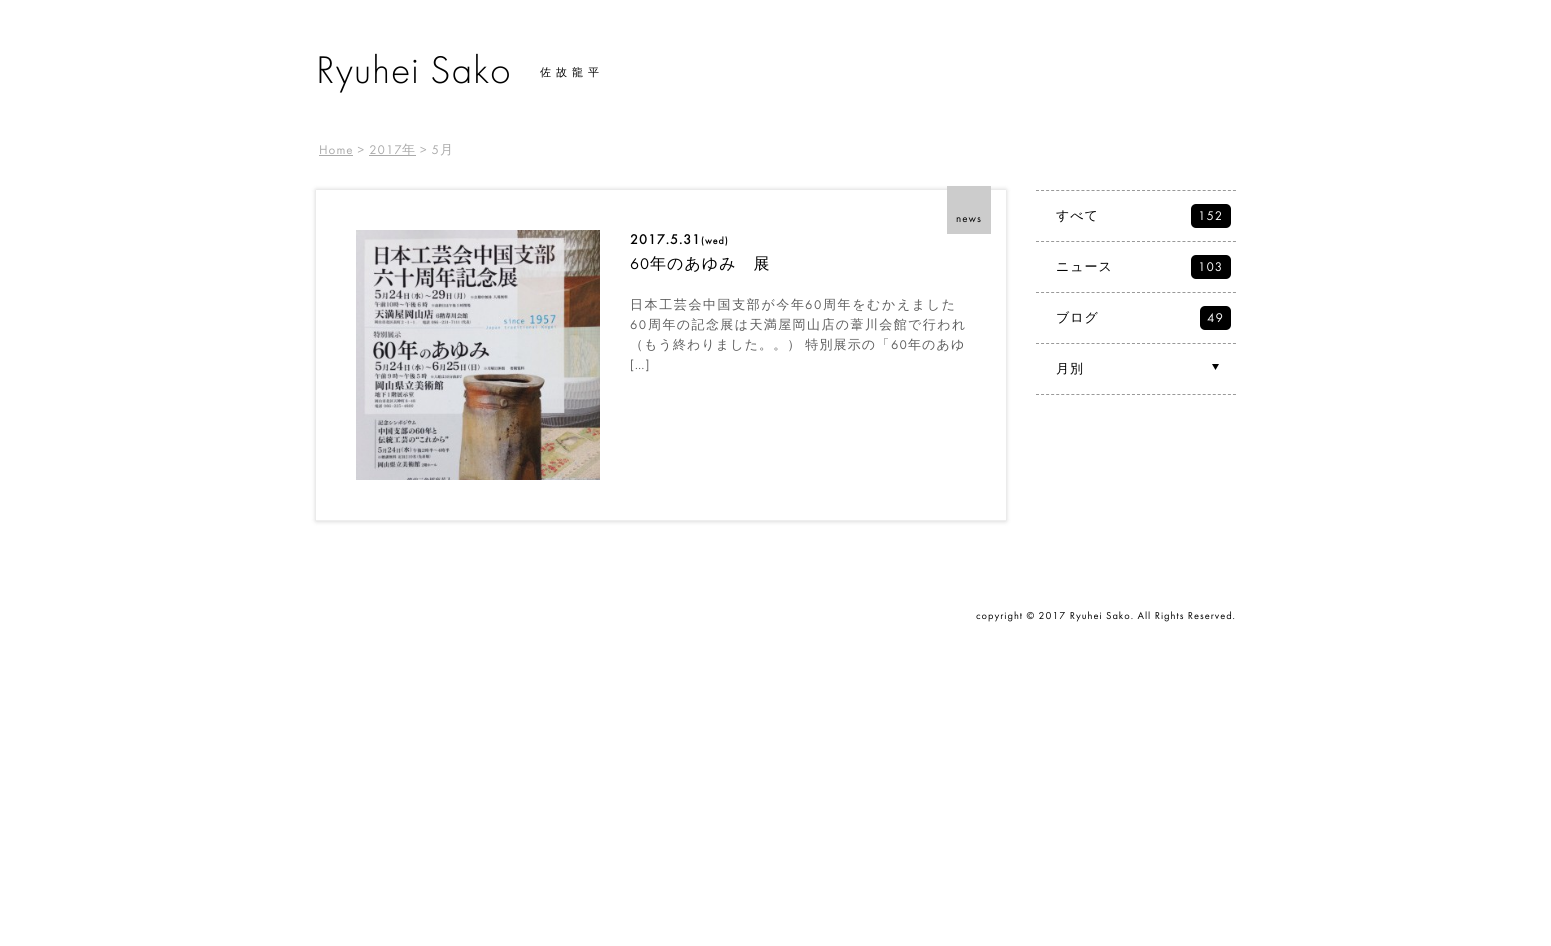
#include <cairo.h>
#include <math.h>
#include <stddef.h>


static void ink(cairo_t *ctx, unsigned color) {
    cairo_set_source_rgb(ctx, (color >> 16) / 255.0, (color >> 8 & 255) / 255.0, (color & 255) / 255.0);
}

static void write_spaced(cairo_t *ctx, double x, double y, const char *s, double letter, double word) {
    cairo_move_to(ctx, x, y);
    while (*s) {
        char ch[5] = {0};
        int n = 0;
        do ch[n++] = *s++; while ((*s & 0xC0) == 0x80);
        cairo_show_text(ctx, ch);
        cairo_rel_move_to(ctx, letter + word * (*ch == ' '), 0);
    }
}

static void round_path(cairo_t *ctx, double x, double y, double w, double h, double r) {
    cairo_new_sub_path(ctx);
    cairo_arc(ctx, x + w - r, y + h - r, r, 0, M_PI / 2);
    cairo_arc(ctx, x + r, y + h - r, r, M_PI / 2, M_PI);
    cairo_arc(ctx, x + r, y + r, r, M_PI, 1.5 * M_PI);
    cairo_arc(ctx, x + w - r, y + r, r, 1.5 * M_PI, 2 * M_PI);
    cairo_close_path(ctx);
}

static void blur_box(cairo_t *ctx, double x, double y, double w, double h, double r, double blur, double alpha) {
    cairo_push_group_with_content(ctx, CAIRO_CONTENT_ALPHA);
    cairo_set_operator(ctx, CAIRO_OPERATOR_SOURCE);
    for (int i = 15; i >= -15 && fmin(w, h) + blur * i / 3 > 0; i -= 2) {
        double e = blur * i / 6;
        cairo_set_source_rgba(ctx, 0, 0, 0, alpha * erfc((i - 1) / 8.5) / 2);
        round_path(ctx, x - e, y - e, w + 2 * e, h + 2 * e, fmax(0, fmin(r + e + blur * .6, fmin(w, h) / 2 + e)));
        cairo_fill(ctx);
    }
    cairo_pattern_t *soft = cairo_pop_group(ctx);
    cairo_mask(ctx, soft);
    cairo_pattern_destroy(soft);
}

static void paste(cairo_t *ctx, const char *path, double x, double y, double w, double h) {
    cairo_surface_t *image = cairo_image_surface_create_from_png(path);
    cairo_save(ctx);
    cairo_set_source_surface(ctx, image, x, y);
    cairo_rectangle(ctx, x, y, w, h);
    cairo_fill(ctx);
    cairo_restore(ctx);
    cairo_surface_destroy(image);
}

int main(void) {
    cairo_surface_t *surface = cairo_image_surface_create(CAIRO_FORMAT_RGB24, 1551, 946);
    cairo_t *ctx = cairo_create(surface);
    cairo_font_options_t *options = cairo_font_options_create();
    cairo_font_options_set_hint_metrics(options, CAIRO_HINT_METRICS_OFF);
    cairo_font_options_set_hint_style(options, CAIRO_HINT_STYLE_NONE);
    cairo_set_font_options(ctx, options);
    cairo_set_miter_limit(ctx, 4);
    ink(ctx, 0xFFFFFF);
    cairo_paint(ctx);
    cairo_select_font_face(ctx, "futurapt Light", CAIRO_FONT_SLANT_NORMAL, CAIRO_FONT_WEIGHT_NORMAL);
    cairo_set_font_size(ctx, 40);
    ink(ctx, 0x000000);
    write_spaced(ctx, 316, 83, "Ryuhei Sako", 1, 0);
    cairo_select_font_face(ctx, "WenQuanYi Zen Hei Medium", CAIRO_FONT_SLANT_NORMAL, CAIRO_FONT_WEIGHT_NORMAL);
    cairo_set_font_size(ctx, 11);
    write_spaced(ctx, 540, 76, "佐故龍平", 5, 0);
    cairo_select_font_face(ctx, "futurapt", CAIRO_FONT_SLANT_NORMAL, CAIRO_FONT_WEIGHT_NORMAL);
    cairo_set_font_size(ctx, 13);
    ink(ctx, 0xAAAAAA);
    write_spaced(ctx, 319, 154, "Home > 2017", 1, 0);
    cairo_rectangle(ctx, 319, 155, 34, 1);
    cairo_fill(ctx);
    cairo_rectangle(ctx, 369, 155, 47, 1);
    cairo_fill(ctx);
    cairo_select_font_face(ctx, "WenQuanYi Zen Hei Medium", CAIRO_FONT_SLANT_NORMAL, CAIRO_FONT_WEIGHT_NORMAL);
    write_spaced(ctx, 402, 154, "年", 1, 0);
    cairo_select_font_face(ctx, "futurapt", CAIRO_FONT_SLANT_NORMAL, CAIRO_FONT_WEIGHT_NORMAL);
    write_spaced(ctx, 420, 154, "> 5", 1, 0);
    cairo_select_font_face(ctx, "WenQuanYi Zen Hei Medium", CAIRO_FONT_SLANT_NORMAL, CAIRO_FONT_WEIGHT_NORMAL);
    write_spaced(ctx, 440, 154, "月", 1, 0);
    cairo_save(ctx);
    cairo_set_fill_rule(ctx, CAIRO_FILL_RULE_EVEN_ODD);
    cairo_new_path(ctx);
    cairo_move_to(ctx, 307, 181);
    cairo_line_to(ctx, 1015, 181);
    cairo_line_to(ctx, 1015, 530);
    cairo_line_to(ctx, 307, 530);
    cairo_close_path(ctx);
    cairo_move_to(ctx, 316, 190);
    cairo_line_to(ctx, 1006, 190);
    cairo_line_to(ctx, 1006, 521);
    cairo_line_to(ctx, 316, 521);
    cairo_close_path(ctx);
    cairo_clip(ctx);
    ink(ctx, 0x000000);
    blur_box(ctx, 316, 190, 690, 331, 0, 2.5, 0.2);
    cairo_restore(ctx);
    ink(ctx, 0xEEEEEE);
    cairo_rectangle(ctx, 316, 520, 690, 1);
    cairo_fill(ctx);
    ink(ctx, 0xCCCCCC);
    cairo_rectangle(ctx, 947, 186, 44, 48);
    cairo_fill(ctx);
    cairo_select_font_face(ctx, "futurapt", CAIRO_FONT_SLANT_NORMAL, CAIRO_FONT_WEIGHT_NORMAL);
    cairo_set_font_size(ctx, 11);
    ink(ctx, 0x000000);
    write_spaced(ctx, 956, 222, "news", 1, 0);
    paste(ctx, "media/1.png", 356, 230, 244, 250);
    cairo_select_font_face(ctx, "futurapt", CAIRO_FONT_SLANT_NORMAL, CAIRO_FONT_WEIGHT_BOLD);
    cairo_set_font_size(ctx, 14);
    write_spaced(ctx, 630, 244, "2017.5.31", 1, 0);
    cairo_set_font_size(ctx, 10);
    write_spaced(ctx, 701, 244, "(wed)", 1, 0);
    cairo_select_font_face(ctx, "futurapt", CAIRO_FONT_SLANT_NORMAL, CAIRO_FONT_WEIGHT_NORMAL);
    cairo_set_font_size(ctx, 16);
    write_spaced(ctx, 630, 269, "60", 1, 0);
    cairo_select_font_face(ctx, "WenQuanYi Zen Hei Medium", CAIRO_FONT_SLANT_NORMAL, CAIRO_FONT_WEIGHT_NORMAL);
    write_spaced(ctx, 650, 269, "年のあゆみ　展", 1, 0);
    cairo_set_font_size(ctx, 13);
    ink(ctx, 0x5D5D5D);
    write_spaced(ctx, 630, 309, "日本工芸会中国支部が今年", 1.6, 0);
    cairo_select_font_face(ctx, "futurapt", CAIRO_FONT_SLANT_NORMAL, CAIRO_FONT_WEIGHT_NORMAL);
    write_spaced(ctx, 805, 309, "60", 1.6, 0);
    cairo_select_font_face(ctx, "WenQuanYi Zen Hei Medium", CAIRO_FONT_SLANT_NORMAL, CAIRO_FONT_WEIGHT_NORMAL);
    write_spaced(ctx, 823, 309, "周年をむかえました", 1.6, 0);
    cairo_select_font_face(ctx, "futurapt", CAIRO_FONT_SLANT_NORMAL, CAIRO_FONT_WEIGHT_NORMAL);
    write_spaced(ctx, 630, 329, "60", 1.4, 0);
    cairo_select_font_face(ctx, "WenQuanYi Zen Hei Medium", CAIRO_FONT_SLANT_NORMAL, CAIRO_FONT_WEIGHT_NORMAL);
    write_spaced(ctx, 648, 329, "周年の記念展は天満屋岡山店の葦川会館で行われ", 1.4, 0);
    write_spaced(ctx, 630, 349, "（もう終わりました。。） 特別展示の「", 1.1, -1);
    cairo_select_font_face(ctx, "futurapt", CAIRO_FONT_SLANT_NORMAL, CAIRO_FONT_WEIGHT_NORMAL);
    write_spaced(ctx, 891, 349, "60", 1.1, 0);
    cairo_select_font_face(ctx, "WenQuanYi Zen Hei Medium", CAIRO_FONT_SLANT_NORMAL, CAIRO_FONT_WEIGHT_NORMAL);
    write_spaced(ctx, 908, 349, "年のあゆ", 1.1, 0);
    cairo_select_font_face(ctx, "futurapt", CAIRO_FONT_SLANT_NORMAL, CAIRO_FONT_WEIGHT_NORMAL);
    write_spaced(ctx, 630, 369, "[…]", 1, 0);
    cairo_new_path(ctx);
    cairo_move_to(ctx, 1036, 190.5);
    cairo_line_to(ctx, 1236, 190.5);
    ink(ctx, 0x999999);
    cairo_set_line_width(ctx, 1);
    cairo_set_dash(ctx, (double[]){3, 2.05}, 2, 0);
    cairo_stroke(ctx);
    cairo_new_path(ctx);
    cairo_move_to(ctx, 1036, 241.5);
    cairo_line_to(ctx, 1236, 241.5);
    cairo_stroke(ctx);
    cairo_select_font_face(ctx, "WenQuanYi Zen Hei Medium", CAIRO_FONT_SLANT_NORMAL, CAIRO_FONT_WEIGHT_NORMAL);
    ink(ctx, 0x000000);
    write_spaced(ctx, 1056, 220, "すべて", 1, 0);
    round_path(ctx, 1191, 204, 40, 24, 5);
    cairo_fill(ctx);
    cairo_select_font_face(ctx, "futurapt", CAIRO_FONT_SLANT_NORMAL, CAIRO_FONT_WEIGHT_NORMAL);
    ink(ctx, 0xFFFFFF);
    write_spaced(ctx, 1198, 220, "152", 1, 0);
    cairo_new_path(ctx);
    cairo_move_to(ctx, 1036, 292.5);
    cairo_line_to(ctx, 1236, 292.5);
    ink(ctx, 0x999999);
    cairo_stroke(ctx);
    cairo_select_font_face(ctx, "WenQuanYi Zen Hei Medium", CAIRO_FONT_SLANT_NORMAL, CAIRO_FONT_WEIGHT_NORMAL);
    ink(ctx, 0x000000);
    write_spaced(ctx, 1056, 271, "ニュース", 1, 0);
    round_path(ctx, 1191, 255, 40, 24, 5);
    cairo_fill(ctx);
    cairo_select_font_face(ctx, "futurapt", CAIRO_FONT_SLANT_NORMAL, CAIRO_FONT_WEIGHT_NORMAL);
    ink(ctx, 0xFFFFFF);
    write_spaced(ctx, 1198, 271, "103", 1, 0);
    cairo_new_path(ctx);
    cairo_move_to(ctx, 1036, 343.5);
    cairo_line_to(ctx, 1236, 343.5);
    ink(ctx, 0x999999);
    cairo_stroke(ctx);
    cairo_select_font_face(ctx, "WenQuanYi Zen Hei Medium", CAIRO_FONT_SLANT_NORMAL, CAIRO_FONT_WEIGHT_NORMAL);
    ink(ctx, 0x000000);
    write_spaced(ctx, 1056, 322, "ブログ", 1, 0);
    round_path(ctx, 1200, 306, 31, 24, 5);
    cairo_fill(ctx);
    cairo_select_font_face(ctx, "futurapt", CAIRO_FONT_SLANT_NORMAL, CAIRO_FONT_WEIGHT_NORMAL);
    ink(ctx, 0xFFFFFF);
    write_spaced(ctx, 1207, 322, "49", 1, 0);
    cairo_new_path(ctx);
    cairo_move_to(ctx, 1036, 394.5);
    cairo_line_to(ctx, 1236, 394.5);
    ink(ctx, 0x999999);
    cairo_stroke(ctx);
    cairo_select_font_face(ctx, "WenQuanYi Zen Hei Medium", CAIRO_FONT_SLANT_NORMAL, CAIRO_FONT_WEIGHT_NORMAL);
    ink(ctx, 0x000000);
    write_spaced(ctx, 1056, 373, "月別", 1, 0);
    cairo_new_path(ctx);
    cairo_move_to(ctx, 1219, 364);
    cairo_line_to(ctx, 1212, 364);
    cairo_line_to(ctx, 1215.5, 370);
    cairo_close_path(ctx);
    cairo_fill(ctx);
    cairo_select_font_face(ctx, "futurapt", CAIRO_FONT_SLANT_NORMAL, CAIRO_FONT_WEIGHT_NORMAL);
    cairo_set_font_size(ctx, 10.4);
    write_spaced(ctx, 976, 619, "copyright © 2017 Ryuhei Sako. All Rights Reserved.", 1, 0);
    cairo_surface_write_to_png(surface, "image.png");
    cairo_font_options_destroy(options);
    cairo_destroy(ctx);
    cairo_surface_destroy(surface);
    return 0;
}
